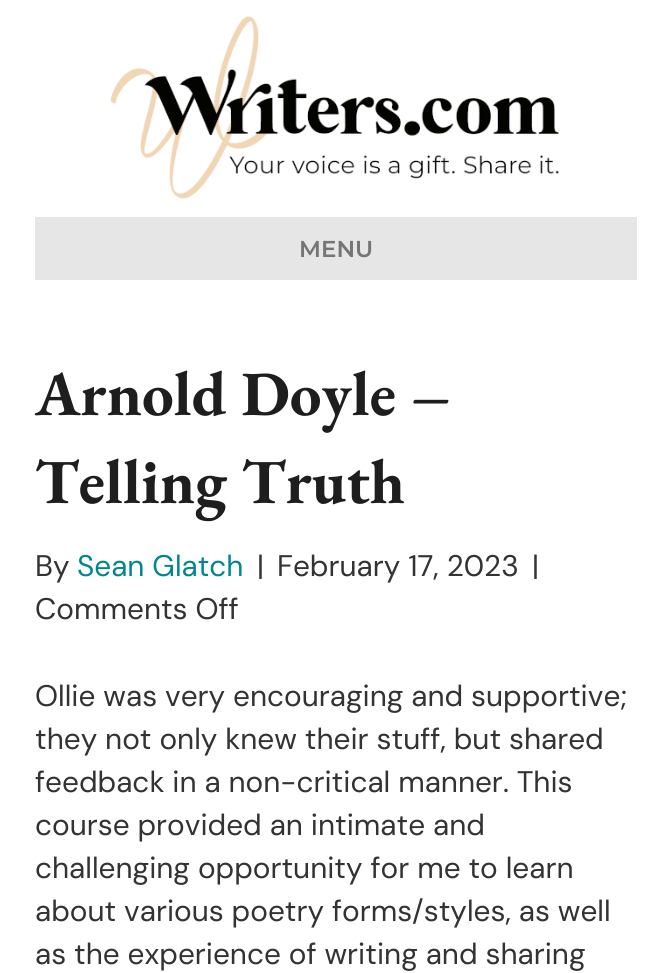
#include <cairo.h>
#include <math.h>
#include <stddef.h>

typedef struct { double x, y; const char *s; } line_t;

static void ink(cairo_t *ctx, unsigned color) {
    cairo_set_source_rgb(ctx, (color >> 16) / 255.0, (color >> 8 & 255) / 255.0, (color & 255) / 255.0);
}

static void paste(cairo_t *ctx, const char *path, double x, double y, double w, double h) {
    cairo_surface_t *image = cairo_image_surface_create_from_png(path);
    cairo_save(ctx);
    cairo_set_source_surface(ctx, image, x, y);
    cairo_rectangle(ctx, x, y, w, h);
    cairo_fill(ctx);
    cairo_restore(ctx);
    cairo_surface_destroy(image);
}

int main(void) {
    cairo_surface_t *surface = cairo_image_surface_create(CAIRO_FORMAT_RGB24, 671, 973);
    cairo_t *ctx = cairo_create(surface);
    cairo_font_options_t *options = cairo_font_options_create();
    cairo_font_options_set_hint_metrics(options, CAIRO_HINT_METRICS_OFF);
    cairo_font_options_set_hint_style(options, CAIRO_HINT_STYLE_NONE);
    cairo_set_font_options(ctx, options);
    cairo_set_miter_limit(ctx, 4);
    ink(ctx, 0xFFFFFF);
    cairo_paint(ctx);
    paste(ctx, "media/1.png", 110, 16, 450, 183);
    ink(ctx, 0xE6E6E6);
    cairo_rectangle(ctx, 35, 217, 602, 63);
    cairo_fill(ctx);
    cairo_select_font_face(ctx, "Montserrat Thin", CAIRO_FONT_SLANT_NORMAL, CAIRO_FONT_WEIGHT_NORMAL);
    cairo_set_font_size(ctx, 23);
    ink(ctx, 0x757575);
    cairo_move_to(ctx, 299, 257);
    cairo_show_text(ctx, "MENU");
    cairo_select_font_face(ctx, "EB Garamond", CAIRO_FONT_SLANT_NORMAL, CAIRO_FONT_WEIGHT_BOLD);
    cairo_set_font_size(ctx, 63);
    ink(ctx, 0x1E1E1E);
    cairo_move_to(ctx, 35, 415);
    cairo_show_text(ctx, "Arnold Doyle –");
    cairo_move_to(ctx, 35, 503);
    cairo_show_text(ctx, "Telling Truth");
    cairo_select_font_face(ctx, "DM Sans", CAIRO_FONT_SLANT_NORMAL, CAIRO_FONT_WEIGHT_NORMAL);
    cairo_set_font_size(ctx, 29.75);
    ink(ctx, 0x333333);
    cairo_move_to(ctx, 35, 576);
    cairo_show_text(ctx, "By");
    ink(ctx, 0x00878B);
    cairo_move_to(ctx, 77, 576);
    cairo_show_text(ctx, "Sean Glatch");
    ink(ctx, 0x333333);
    {
        static const line_t items[] = {
            {257, 576, "|"},
            {277, 576, "February 17, 2023"},
            {532, 576, "|"},
            {35, 619, "Comments Off"},
            {35, 706, "Ollie was very encouraging and supportive;"},
            {35, 749, "they not only knew their stuff, but shared"},
            {35, 792, "feedback in a non-critical manner. This"},
            {35, 835, "course provided an intimate and"},
            {35, 878, "challenging opportunity for me to learn"},
            {35, 921, "about various poetry forms/styles, as well"},
            {35, 964, "as the experience of writing and sharing"},
        };
        for (size_t i = 0; i < sizeof items / sizeof *items; i++) {
            cairo_move_to(ctx, items[i].x, items[i].y);
            cairo_show_text(ctx, items[i].s);
        }
    }
    cairo_surface_write_to_png(surface, "image.png");
    cairo_font_options_destroy(options);
    cairo_destroy(ctx);
    cairo_surface_destroy(surface);
    return 0;
}
